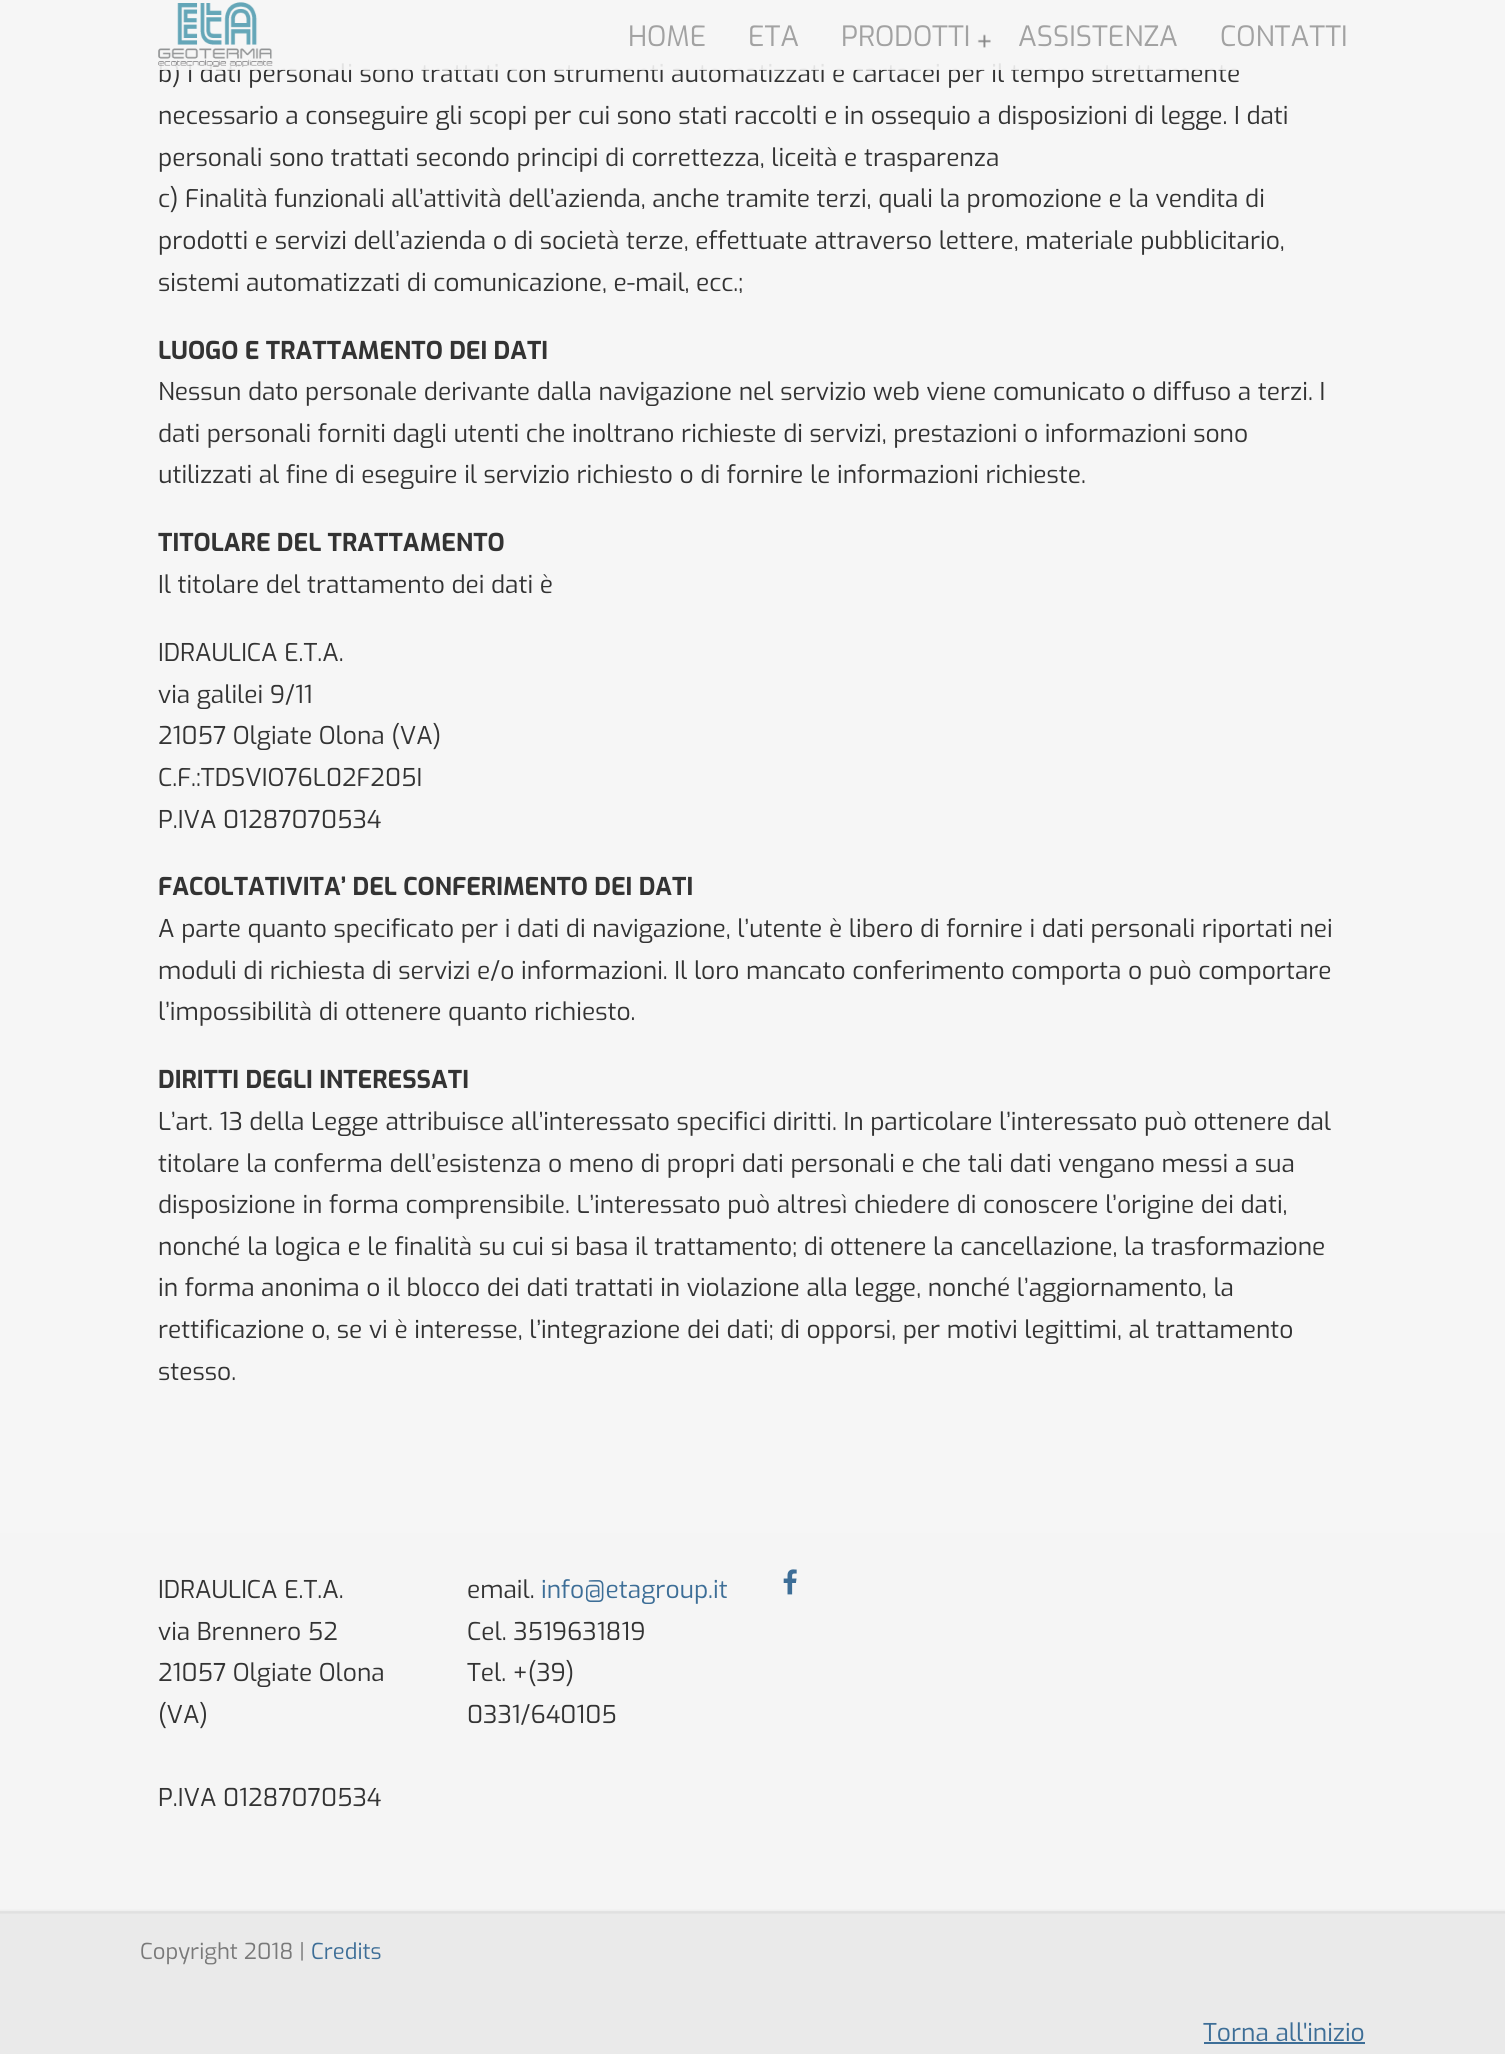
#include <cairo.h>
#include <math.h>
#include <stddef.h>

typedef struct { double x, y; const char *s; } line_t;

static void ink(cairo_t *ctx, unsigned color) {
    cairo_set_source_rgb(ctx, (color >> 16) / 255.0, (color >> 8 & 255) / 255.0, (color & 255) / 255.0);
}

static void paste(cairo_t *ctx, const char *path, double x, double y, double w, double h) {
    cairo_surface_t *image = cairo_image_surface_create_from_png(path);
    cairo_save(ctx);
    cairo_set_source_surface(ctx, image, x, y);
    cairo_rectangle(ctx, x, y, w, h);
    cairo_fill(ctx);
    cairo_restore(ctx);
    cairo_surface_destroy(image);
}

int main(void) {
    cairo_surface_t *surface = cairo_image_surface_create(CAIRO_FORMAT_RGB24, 1505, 2054);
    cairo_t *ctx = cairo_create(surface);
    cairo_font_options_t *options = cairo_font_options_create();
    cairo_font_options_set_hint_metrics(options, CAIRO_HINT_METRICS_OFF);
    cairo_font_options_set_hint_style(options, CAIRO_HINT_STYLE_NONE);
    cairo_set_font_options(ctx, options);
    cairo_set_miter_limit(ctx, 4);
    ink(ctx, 0xEAEAEA);
    cairo_paint(ctx);
    ink(ctx, 0xF6F6F6);
    cairo_rectangle(ctx, 0, 0, 1505, 1533);
    cairo_fill(ctx);
    cairo_select_font_face(ctx, "Exo", CAIRO_FONT_SLANT_NORMAL, CAIRO_FONT_WEIGHT_NORMAL);
    cairo_set_font_size(ctx, 24.5);
    ink(ctx, 0x333333);
    cairo_move_to(ctx, 158, 82);
    cairo_show_text(ctx, "b) I dati personali sono trattati con strumenti automatizzati e cartacei per il tempo strettamente");
    cairo_set_source_rgba(ctx, 0.965, 0.965, 0.965, 0.9);
    cairo_rectangle(ctx, 159, 60, 1079, 10);
    cairo_fill(ctx);
    paste(ctx, "media/1.png", 158, 2, 115, 65);
    cairo_set_font_size(ctx, 28);
    ink(ctx, 0xA2A2A2);
    {
        static const line_t items[] = {
            {628, 46, "HOME"},
            {748, 46, "ETA"},
            {841, 46, "PRODOTTI"},
        };
        for (size_t i = 0; i < sizeof items / sizeof *items; i++) {
            cairo_move_to(ctx, items[i].x, items[i].y);
            cairo_show_text(ctx, items[i].s);
        }
    }
    paste(ctx, "media/2.png", 977, 34, 14, 14);
    cairo_move_to(ctx, 1018, 46);
    cairo_show_text(ctx, "ASSISTENZA");
    cairo_move_to(ctx, 1220, 46);
    cairo_show_text(ctx, "CONTATTI");
    cairo_set_font_size(ctx, 24.5);
    ink(ctx, 0x333333);
    {
        static const line_t items[] = {
            {158, 124, "necessario a conseguire gli scopi per cui sono stati raccolti e in ossequio a disposizioni di legge. I dati"},
            {158, 166, "personali sono trattati secondo principi di correttezza, liceità e trasparenza"},
            {158, 207, "c) Finalità funzionali all’attività dell’azienda, anche tramite terzi, quali la promozione e la vendita di"},
            {158, 249, "prodotti e servizi dell’azienda o di società terze, effettuate attraverso lettere, materiale pubblicitario,"},
            {158, 291, "sistemi automatizzati di comunicazione, e-mail, ecc.;"},
        };
        for (size_t i = 0; i < sizeof items / sizeof *items; i++) {
            cairo_move_to(ctx, items[i].x, items[i].y);
            cairo_show_text(ctx, items[i].s);
        }
    }
    cairo_select_font_face(ctx, "Exo", CAIRO_FONT_SLANT_NORMAL, CAIRO_FONT_WEIGHT_BOLD);
    cairo_move_to(ctx, 158, 359);
    cairo_show_text(ctx, "LUOGO E TRATTAMENTO DEI DATI");
    cairo_select_font_face(ctx, "Exo", CAIRO_FONT_SLANT_NORMAL, CAIRO_FONT_WEIGHT_NORMAL);
    {
        static const line_t items[] = {
            {158, 400, "Nessun dato personale derivante dalla navigazione nel servizio web viene comunicato o diffuso a terzi. I"},
            {158, 442, "dati personali forniti dagli utenti che inoltrano richieste di servizi, prestazioni o informazioni sono"},
            {158, 483, "utilizzati al fine di eseguire il servizio richiesto o di fornire le informazioni richieste."},
        };
        for (size_t i = 0; i < sizeof items / sizeof *items; i++) {
            cairo_move_to(ctx, items[i].x, items[i].y);
            cairo_show_text(ctx, items[i].s);
        }
    }
    cairo_select_font_face(ctx, "Exo", CAIRO_FONT_SLANT_NORMAL, CAIRO_FONT_WEIGHT_BOLD);
    cairo_move_to(ctx, 158, 551);
    cairo_show_text(ctx, "TITOLARE DEL TRATTAMENTO");
    cairo_select_font_face(ctx, "Exo", CAIRO_FONT_SLANT_NORMAL, CAIRO_FONT_WEIGHT_NORMAL);
    {
        static const line_t items[] = {
            {158, 593, "Il titolare del trattamento dei dati è"},
            {158, 661, "IDRAULICA E.T.A."},
            {158, 703, "via galilei 9/11"},
            {158, 744, "21057 Olgiate Olona (VA)"},
            {158, 786, "C.F.:TDSVIO76L02F205I"},
            {158, 828, "P.IVA 01287070534"},
        };
        for (size_t i = 0; i < sizeof items / sizeof *items; i++) {
            cairo_move_to(ctx, items[i].x, items[i].y);
            cairo_show_text(ctx, items[i].s);
        }
    }
    cairo_select_font_face(ctx, "Exo", CAIRO_FONT_SLANT_NORMAL, CAIRO_FONT_WEIGHT_BOLD);
    cairo_move_to(ctx, 158, 895);
    cairo_show_text(ctx, "FACOLTATIVITA’ DEL CONFERIMENTO DEI DATI");
    cairo_select_font_face(ctx, "Exo", CAIRO_FONT_SLANT_NORMAL, CAIRO_FONT_WEIGHT_NORMAL);
    {
        static const line_t items[] = {
            {158, 937, "A parte quanto specificato per i dati di navigazione, l’utente è libero di fornire i dati personali riportati nei"},
            {158, 979, "moduli di richiesta di servizi e/o informazioni. Il loro mancato conferimento comporta o può comportare"},
            {158, 1020, "l’impossibilità di ottenere quanto richiesto."},
        };
        for (size_t i = 0; i < sizeof items / sizeof *items; i++) {
            cairo_move_to(ctx, items[i].x, items[i].y);
            cairo_show_text(ctx, items[i].s);
        }
    }
    cairo_select_font_face(ctx, "Exo", CAIRO_FONT_SLANT_NORMAL, CAIRO_FONT_WEIGHT_BOLD);
    cairo_move_to(ctx, 158, 1088);
    cairo_show_text(ctx, "DIRITTI DEGLI INTERESSATI");
    cairo_select_font_face(ctx, "Exo", CAIRO_FONT_SLANT_NORMAL, CAIRO_FONT_WEIGHT_NORMAL);
    {
        static const line_t items[] = {
            {158, 1130, "L’art. 13 della Legge attribuisce all’interessato specifici diritti. In particolare l’interessato può ottenere dal"},
            {158, 1172, "titolare la conferma dell’esistenza o meno di propri dati personali e che tali dati vengano messi a sua"},
            {158, 1213, "disposizione in forma comprensibile. L’interessato può altresì chiedere di conoscere l’origine dei dati,"},
            {158, 1255, "nonché la logica e le finalità su cui si basa il trattamento; di ottenere la cancellazione, la trasformazione"},
            {158, 1296, "in forma anonima o il blocco dei dati trattati in violazione alla legge, nonché l’aggiornamento, la"},
            {158, 1338, "rettificazione o, se vi è interesse, l’integrazione dei dati; di opporsi, per motivi legittimi, al trattamento"},
            {158, 1380, "stesso."},
        };
        for (size_t i = 0; i < sizeof items / sizeof *items; i++) {
            cairo_move_to(ctx, items[i].x, items[i].y);
            cairo_show_text(ctx, items[i].s);
        }
    }
    ink(ctx, 0xF5F5F5);
    cairo_rectangle(ctx, 0, 1533, 1505, 376);
    cairo_fill(ctx);
    ink(ctx, 0x333333);
    {
        static const line_t items[] = {
            {158, 1598, "IDRAULICA E.T.A."},
            {158, 1640, "via Brennero 52"},
            {158, 1681, "21057 Olgiate Olona"},
            {158, 1723, "(VA)"},
            {158, 1806, "P.IVA 01287070534"},
            {467, 1598, "email."},
        };
        for (size_t i = 0; i < sizeof items / sizeof *items; i++) {
            cairo_move_to(ctx, items[i].x, items[i].y);
            cairo_show_text(ctx, items[i].s);
        }
    }
    ink(ctx, 0x3D6E97);
    cairo_move_to(ctx, 541, 1598);
    cairo_show_text(ctx, "info@etagroup.it");
    ink(ctx, 0x333333);
    {
        static const line_t items[] = {
            {467, 1640, "Cel. 3519631819"},
            {467, 1681, "Tel. +(39)"},
            {467, 1723, "0331/640105"},
        };
        for (size_t i = 0; i < sizeof items / sizeof *items; i++) {
            cairo_move_to(ctx, items[i].x, items[i].y);
            cairo_show_text(ctx, items[i].s);
        }
    }
    paste(ctx, "media/3.png", 783, 1569, 14, 26);
    paste(ctx, "media/4.png", 0, 1909, 1505, 5);
    cairo_set_font_size(ctx, 22);
    ink(ctx, 0x797979);
    cairo_move_to(ctx, 140, 1959);
    cairo_show_text(ctx, "Copyright 2018 |");
    ink(ctx, 0x3D6E97);
    cairo_move_to(ctx, 311, 1959);
    cairo_show_text(ctx, "Credits");
    cairo_set_font_size(ctx, 24.5);
    cairo_move_to(ctx, 1203, 2041);
    cairo_show_text(ctx, "Torna all'inizio");
    cairo_rectangle(ctx, 1204, 2042, 161, 2);
    cairo_fill(ctx);
    cairo_surface_write_to_png(surface, "image.png");
    cairo_font_options_destroy(options);
    cairo_destroy(ctx);
    cairo_surface_destroy(surface);
    return 0;
}
